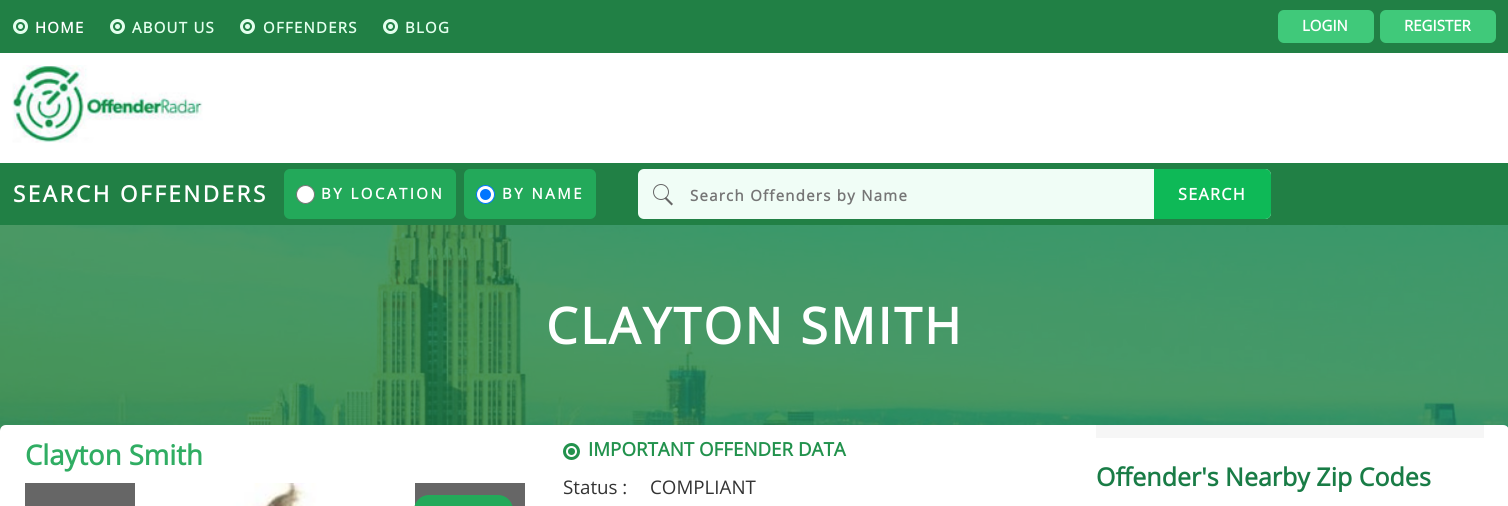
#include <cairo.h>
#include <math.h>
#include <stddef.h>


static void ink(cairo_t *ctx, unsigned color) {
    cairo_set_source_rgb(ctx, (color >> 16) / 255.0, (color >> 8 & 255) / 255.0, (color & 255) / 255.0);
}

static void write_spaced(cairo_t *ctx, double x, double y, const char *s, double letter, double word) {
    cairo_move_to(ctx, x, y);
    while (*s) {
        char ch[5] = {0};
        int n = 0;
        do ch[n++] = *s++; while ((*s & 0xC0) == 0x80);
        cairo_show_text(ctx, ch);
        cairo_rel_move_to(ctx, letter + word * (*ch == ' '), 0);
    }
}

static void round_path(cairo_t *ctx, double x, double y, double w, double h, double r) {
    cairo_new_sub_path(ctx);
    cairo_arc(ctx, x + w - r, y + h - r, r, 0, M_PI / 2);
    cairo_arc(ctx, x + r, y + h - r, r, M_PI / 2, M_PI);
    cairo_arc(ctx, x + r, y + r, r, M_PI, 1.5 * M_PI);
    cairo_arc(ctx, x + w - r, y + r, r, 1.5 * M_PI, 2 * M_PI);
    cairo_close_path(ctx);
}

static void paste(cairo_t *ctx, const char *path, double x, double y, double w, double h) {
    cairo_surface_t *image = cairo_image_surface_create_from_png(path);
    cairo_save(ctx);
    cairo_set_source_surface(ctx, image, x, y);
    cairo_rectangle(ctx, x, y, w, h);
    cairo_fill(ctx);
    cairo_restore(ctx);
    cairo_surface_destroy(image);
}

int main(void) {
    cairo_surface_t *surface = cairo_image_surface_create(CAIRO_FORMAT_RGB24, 1508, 506);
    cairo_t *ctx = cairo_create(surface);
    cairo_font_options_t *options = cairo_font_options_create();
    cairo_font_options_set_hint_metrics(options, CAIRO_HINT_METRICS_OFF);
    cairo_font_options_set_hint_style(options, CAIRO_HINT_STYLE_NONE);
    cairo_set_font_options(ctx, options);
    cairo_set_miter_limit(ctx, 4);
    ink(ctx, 0xFFFFFF);
    cairo_paint(ctx);
    ink(ctx, 0x218045);
    cairo_rectangle(ctx, 0, 0, 1508, 53);
    cairo_fill(ctx);
    cairo_arc(ctx, 20.5, 26.5, 6, 0, 2 * M_PI);
    ink(ctx, 0xE4FFEE);
    cairo_set_line_width(ctx, 3);
    cairo_stroke(ctx);
    cairo_select_font_face(ctx, "Open Sans", CAIRO_FONT_SLANT_NORMAL, CAIRO_FONT_WEIGHT_BOLD);
    cairo_set_font_size(ctx, 15);
    ink(ctx, 0xFFFFFF);
    write_spaced(ctx, 35, 33, "HOME", 1.25, 0);
    ink(ctx, 0xE4FFEE);
    cairo_new_path(ctx);
    cairo_arc(ctx, 20.5, 26.5, 2.5, 0, 2 * M_PI);
    cairo_fill(ctx);
    cairo_arc(ctx, 117.5, 26.5, 6, 0, 2 * M_PI);
    cairo_stroke(ctx);
    write_spaced(ctx, 132, 33, "ABOUT US", 1.25, 0);
    cairo_new_path(ctx);
    cairo_arc(ctx, 117.5, 26.5, 2.5, 0, 2 * M_PI);
    cairo_fill(ctx);
    cairo_arc(ctx, 247.5, 26.5, 6, 0, 2 * M_PI);
    cairo_stroke(ctx);
    write_spaced(ctx, 263, 33, "OFFENDERS", 1.25, 0);
    cairo_new_path(ctx);
    cairo_arc(ctx, 247.5, 26.5, 2.5, 0, 2 * M_PI);
    cairo_fill(ctx);
    cairo_arc(ctx, 390.5, 26.5, 6, 0, 2 * M_PI);
    cairo_stroke(ctx);
    write_spaced(ctx, 405, 33, "BLOG", 1.25, 0);
    cairo_new_path(ctx);
    cairo_arc(ctx, 390.5, 26.5, 2.5, 0, 2 * M_PI);
    cairo_fill(ctx);
    ink(ctx, 0x40C97A);
    round_path(ctx, 1278, 10, 96, 33, 6);
    cairo_fill(ctx);
    ink(ctx, 0xFFFFFF);
    cairo_move_to(ctx, 1302, 31);
    cairo_show_text(ctx, "LOGIN");
    ink(ctx, 0x40C97A);
    round_path(ctx, 1380, 10, 116, 33, 6);
    cairo_fill(ctx);
    ink(ctx, 0xFFFFFF);
    cairo_move_to(ctx, 1404, 31);
    cairo_show_text(ctx, "REGISTER");
    paste(ctx, "media/1.png", 12, 65, 191, 78);
    ink(ctx, 0x218045);
    cairo_rectangle(ctx, 0, 163, 1508, 62);
    cairo_fill(ctx);
    cairo_set_font_size(ctx, 22.5);
    ink(ctx, 0xFFFFFF);
    write_spaced(ctx, 13, 202, "SEARCH OFFENDERS", 2.5, 0);
    ink(ctx, 0x23A95A);
    round_path(ctx, 284, 169, 172, 50, 6);
    cairo_fill(ctx);
    ink(ctx, 0xFFFFFF);
    cairo_arc(ctx, 305.5, 194.5, 9, 0, 2 * M_PI);
    cairo_fill_preserve(ctx);
    ink(ctx, 0x767676);
    cairo_set_line_width(ctx, 1);
    cairo_stroke(ctx);
    cairo_set_font_size(ctx, 15);
    ink(ctx, 0xFFFFFF);
    write_spaced(ctx, 321, 199, "BY LOCATION", 2.5, 0);
    ink(ctx, 0x23A95A);
    round_path(ctx, 464, 169, 132, 50, 6);
    cairo_fill(ctx);
    ink(ctx, 0xFFFFFF);
    cairo_arc(ctx, 485.5, 194.5, 9, 0, 2 * M_PI);
    cairo_fill_preserve(ctx);
    ink(ctx, 0x0075FF);
    cairo_stroke(ctx);
    cairo_arc(ctx, 485.5, 194.5, 5.5, 0, 2 * M_PI);
    cairo_fill(ctx);
    ink(ctx, 0xFFFFFF);
    write_spaced(ctx, 502, 199, "BY NAME", 2.5, 0);
    ink(ctx, 0xF0FDF6);
    round_path(ctx, 638, 169, 633, 50, 6);
    cairo_fill(ctx);
    cairo_arc(ctx, 661, 192, 7.5, 0, 2 * M_PI);
    ink(ctx, 0x666666);
    cairo_stroke(ctx);
    ink(ctx, 0x757575);
    write_spaced(ctx, 690, 201, "Search Offenders by Name", 1.25, 0);
    ink(ctx, 0x0EB957);
    cairo_new_path(ctx);
    cairo_move_to(ctx, 1154, 169);
    cairo_line_to(ctx, 1265, 169);
    cairo_curve_to(ctx, 1268.5, 169, 1271, 171.5, 1271, 175);
    cairo_line_to(ctx, 1271, 213);
    cairo_curve_to(ctx, 1271, 216.5, 1268.5, 219, 1265, 219);
    cairo_line_to(ctx, 1154, 219);
    cairo_close_path(ctx);
    cairo_fill(ctx);
    cairo_set_font_size(ctx, 16.25);
    ink(ctx, 0xFFFFFF);
    write_spaced(ctx, 1178, 200, "SEARCH", 1.25, 0);
    ink(ctx, 0x666666);
    cairo_new_path(ctx);
    cairo_move_to(ctx, 666, 197);
    cairo_line_to(ctx, 673, 204);
    cairo_line_to(ctx, 671.5, 205.5);
    cairo_line_to(ctx, 664.5, 198.5);
    cairo_close_path(ctx);
    cairo_fill(ctx);
    paste(ctx, "media/2.png", 0, 225, 1508, 206);
    cairo_set_font_size(ctx, 50);
    ink(ctx, 0xFFFFFF);
    write_spaced(ctx, 546, 344, "CLAYTON SMITH", 2.5, 0);
    cairo_new_path(ctx);
    cairo_move_to(ctx, 6, 425);
    cairo_line_to(ctx, 1503, 425);
    cairo_curve_to(ctx, 1506.5, 425, 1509, 427.5, 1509, 431);
    cairo_line_to(ctx, 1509, 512);
    cairo_line_to(ctx, 0, 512);
    cairo_line_to(ctx, 0, 431);
    cairo_curve_to(ctx, 0, 427.5, 2.5, 425, 6, 425);
    cairo_close_path(ctx);
    cairo_fill(ctx);
    cairo_set_font_size(ctx, 27.5);
    ink(ctx, 0x30AD63);
    cairo_move_to(ctx, 25, 465);
    cairo_show_text(ctx, "Clayton Smith");
    ink(ctx, 0x666666);
    cairo_rectangle(ctx, 25, 483, 500, 23);
    cairo_fill(ctx);
    paste(ctx, "media/3.png", 135, 483, 280, 23);
    ink(ctx, 0x23A95A);
    round_path(ctx, 414, 495, 99, 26, 15);
    cairo_fill(ctx);
    cairo_arc(ctx, 571.5, 451.5, 7, 0, 2 * M_PI);
    ink(ctx, 0x22924D);
    cairo_set_line_width(ctx, 3);
    cairo_stroke(ctx);
    cairo_set_font_size(ctx, 18.75);
    cairo_move_to(ctx, 588, 456);
    cairo_show_text(ctx, "IMPORTANT OFFENDER DATA");
    cairo_new_path(ctx);
    cairo_arc(ctx, 571.5, 451.5, 3.5, 0, 2 * M_PI);
    cairo_fill(ctx);
    cairo_select_font_face(ctx, "Open Sans", CAIRO_FONT_SLANT_NORMAL, CAIRO_FONT_WEIGHT_NORMAL);
    ink(ctx, 0x333333);
    cairo_move_to(ctx, 563, 494);
    cairo_show_text(ctx, "Status :");
    cairo_move_to(ctx, 650, 494);
    cairo_show_text(ctx, "COMPLIANT");
    ink(ctx, 0xF6F6F6);
    cairo_rectangle(ctx, 1096, 425, 388, 13);
    cairo_fill(ctx);
    cairo_select_font_face(ctx, "Open Sans", CAIRO_FONT_SLANT_NORMAL, CAIRO_FONT_WEIGHT_BOLD);
    cairo_set_font_size(ctx, 25);
    ink(ctx, 0x197C46);
    cairo_move_to(ctx, 1096, 486);
    cairo_show_text(ctx, "Offender's Nearby Zip Codes");
    cairo_surface_write_to_png(surface, "image.png");
    cairo_font_options_destroy(options);
    cairo_destroy(ctx);
    cairo_surface_destroy(surface);
    return 0;
}
